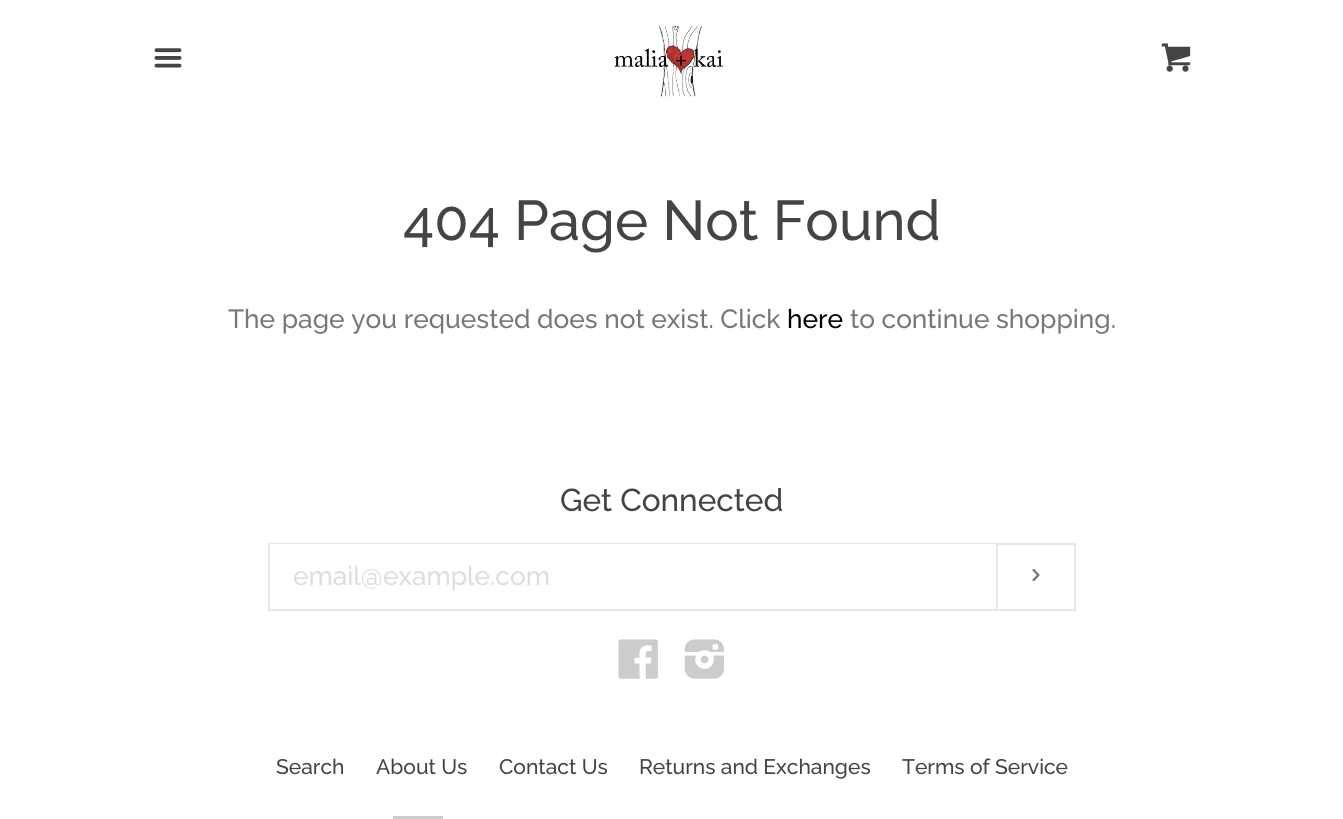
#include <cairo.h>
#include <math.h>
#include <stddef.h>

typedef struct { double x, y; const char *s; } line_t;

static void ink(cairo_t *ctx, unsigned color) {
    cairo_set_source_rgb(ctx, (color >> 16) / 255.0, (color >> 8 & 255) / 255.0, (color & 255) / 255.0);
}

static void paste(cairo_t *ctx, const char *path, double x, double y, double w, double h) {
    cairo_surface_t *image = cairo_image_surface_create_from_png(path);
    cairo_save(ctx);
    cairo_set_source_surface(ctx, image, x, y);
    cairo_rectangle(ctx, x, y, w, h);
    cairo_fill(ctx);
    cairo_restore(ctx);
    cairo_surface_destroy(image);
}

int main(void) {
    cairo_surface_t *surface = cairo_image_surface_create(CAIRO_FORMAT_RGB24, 1343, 819);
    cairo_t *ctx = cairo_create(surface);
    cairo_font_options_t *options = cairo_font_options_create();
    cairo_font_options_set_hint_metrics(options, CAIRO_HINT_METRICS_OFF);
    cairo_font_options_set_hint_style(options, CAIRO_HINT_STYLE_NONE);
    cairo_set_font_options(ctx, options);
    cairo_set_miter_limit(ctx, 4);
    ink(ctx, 0xFFFFFF);
    cairo_paint(ctx);
    paste(ctx, "media/1.png", 154, 48, 28, 20);
    paste(ctx, "media/2.png", 614, 26, 109, 71);
    paste(ctx, "media/3.png", 1161, 43, 30, 29);
    cairo_select_font_face(ctx, "Raleway Medium", CAIRO_FONT_SLANT_NORMAL, CAIRO_FONT_WEIGHT_NORMAL);
    cairo_set_font_size(ctx, 56);
    ink(ctx, 0x444444);
    cairo_move_to(ctx, 403, 240);
    cairo_show_text(ctx, "404 Page Not Found");
    cairo_set_font_size(ctx, 26.25);
    ink(ctx, 0x777777);
    cairo_move_to(ctx, 228, 328);
    cairo_show_text(ctx, "The page you requested does not exist. Click");
    ink(ctx, 0x000000);
    cairo_move_to(ctx, 787, 328);
    cairo_show_text(ctx, "here");
    ink(ctx, 0x777777);
    cairo_move_to(ctx, 850, 328);
    cairo_show_text(ctx, "to continue shopping.");
    cairo_set_font_size(ctx, 31.5);
    ink(ctx, 0x444444);
    cairo_move_to(ctx, 560, 511);
    cairo_show_text(ctx, "Get Connected");
    cairo_rectangle(ctx, 269, 544, 806, 66);
    ink(ctx, 0xE7E7E7);
    cairo_stroke(ctx);
    ink(ctx, 0xFFFFFF);
    cairo_rectangle(ctx, 270, 544, 726, 1);
    cairo_fill(ctx);
    ink(ctx, 0xE7E7E7);
    cairo_rectangle(ctx, 996, 544, 2, 65);
    cairo_fill(ctx);
    cairo_set_font_size(ctx, 26.25);
    ink(ctx, 0xDDDDDD);
    cairo_move_to(ctx, 293, 585);
    cairo_show_text(ctx, "email@example.com");
    paste(ctx, "media/4.png", 1032, 569, 8, 13);
    paste(ctx, "media/5.png", 618, 639, 40, 40);
    paste(ctx, "media/6.png", 684, 639, 40, 40);
    cairo_set_font_size(ctx, 21);
    ink(ctx, 0x444444);
    {
        static const line_t items[] = {
            {276, 774, "Search"},
            {376, 774, "About Us"},
            {499, 774, "Contact Us"},
            {639, 774, "Returns and Exchanges"},
            {902, 774, "Terms of Service"},
        };
        for (size_t i = 0; i < sizeof items / sizeof *items; i++) {
            cairo_move_to(ctx, items[i].x, items[i].y);
            cairo_show_text(ctx, items[i].s);
        }
    }
    ink(ctx, 0xCCCCCC);
    cairo_rectangle(ctx, 393, 816, 50, 3);
    cairo_fill(ctx);
    cairo_surface_write_to_png(surface, "image.png");
    cairo_font_options_destroy(options);
    cairo_destroy(ctx);
    cairo_surface_destroy(surface);
    return 0;
}
